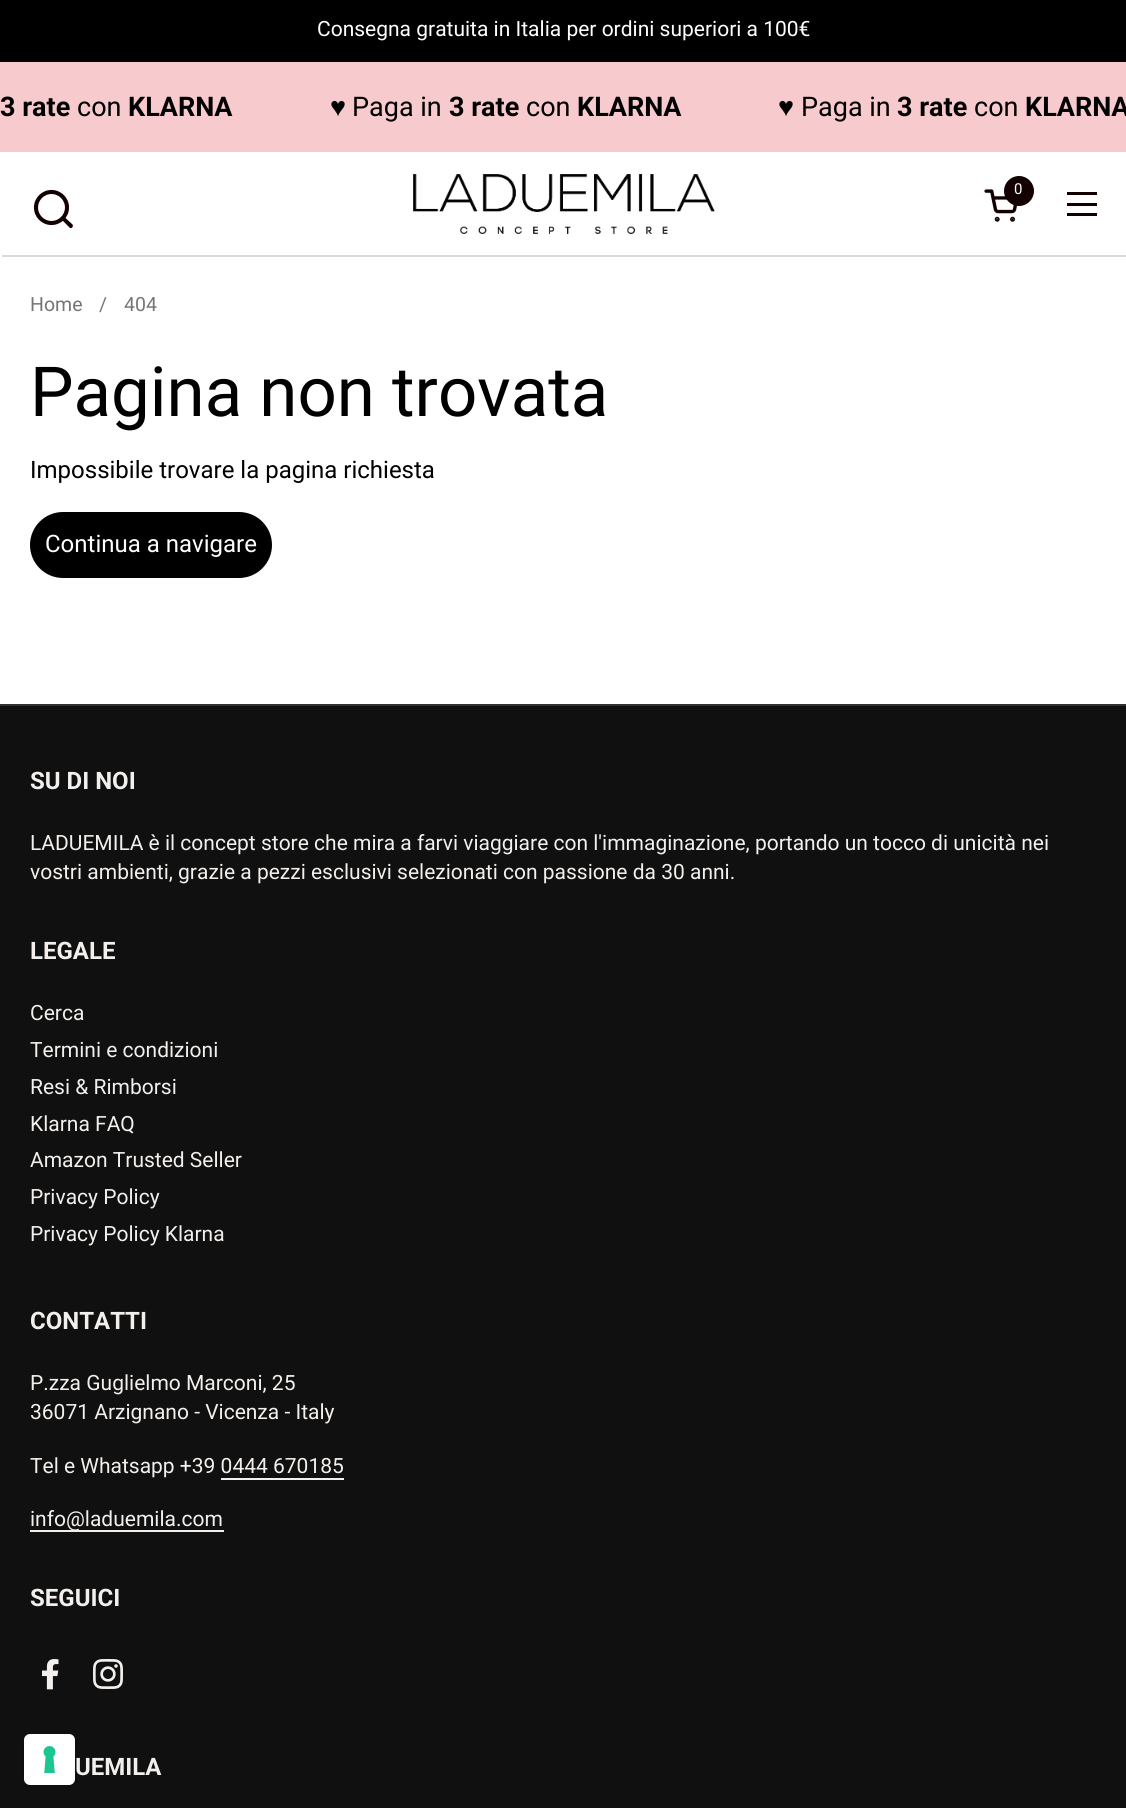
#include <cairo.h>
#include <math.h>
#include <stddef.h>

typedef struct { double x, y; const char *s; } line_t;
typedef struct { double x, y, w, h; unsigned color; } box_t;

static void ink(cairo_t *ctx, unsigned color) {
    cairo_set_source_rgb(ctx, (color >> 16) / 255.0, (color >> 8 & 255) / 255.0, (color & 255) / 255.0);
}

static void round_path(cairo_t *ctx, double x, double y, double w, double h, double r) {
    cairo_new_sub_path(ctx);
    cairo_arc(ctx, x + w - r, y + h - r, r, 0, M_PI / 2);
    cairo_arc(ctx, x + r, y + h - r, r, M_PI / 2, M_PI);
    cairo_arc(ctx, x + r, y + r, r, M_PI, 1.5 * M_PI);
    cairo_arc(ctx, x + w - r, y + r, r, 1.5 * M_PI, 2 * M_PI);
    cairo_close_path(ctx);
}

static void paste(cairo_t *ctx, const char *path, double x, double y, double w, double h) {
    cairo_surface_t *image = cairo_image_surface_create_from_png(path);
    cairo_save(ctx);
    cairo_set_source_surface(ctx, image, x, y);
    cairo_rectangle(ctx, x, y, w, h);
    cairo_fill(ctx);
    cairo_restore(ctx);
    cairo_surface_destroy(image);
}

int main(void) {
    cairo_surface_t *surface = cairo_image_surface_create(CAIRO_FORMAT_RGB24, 1126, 1808);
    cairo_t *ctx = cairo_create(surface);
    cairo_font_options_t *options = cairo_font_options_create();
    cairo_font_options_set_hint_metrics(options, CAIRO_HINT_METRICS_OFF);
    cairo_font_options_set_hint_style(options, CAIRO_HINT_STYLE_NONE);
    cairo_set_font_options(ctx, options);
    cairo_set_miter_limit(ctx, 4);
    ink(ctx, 0xFFFFFF);
    cairo_paint(ctx);
    ink(ctx, 0x000000);
    cairo_rectangle(ctx, 0, 0, 1126, 62);
    cairo_fill(ctx);
    cairo_select_font_face(ctx, "Roboto", CAIRO_FONT_SLANT_NORMAL, CAIRO_FONT_WEIGHT_NORMAL);
    cairo_set_font_size(ctx, 21);
    ink(ctx, 0xFFFFFF);
    cairo_move_to(ctx, 317, 36);
    cairo_show_text(ctx, "Consegna gratuita in Italia per ordini superiori a 100€");
    ink(ctx, 0xF7CACE);
    cairo_rectangle(ctx, 0, 62, 1126, 90);
    cairo_fill(ctx);
    cairo_select_font_face(ctx, "Roboto", CAIRO_FONT_SLANT_NORMAL, CAIRO_FONT_WEIGHT_BOLD);
    cairo_set_font_size(ctx, 27);
    ink(ctx, 0x000000);
    cairo_move_to(ctx, 0, 116);
    cairo_show_text(ctx, "3 rate");
    cairo_select_font_face(ctx, "Roboto", CAIRO_FONT_SLANT_NORMAL, CAIRO_FONT_WEIGHT_NORMAL);
    cairo_move_to(ctx, 77, 116);
    cairo_show_text(ctx, "con");
    cairo_select_font_face(ctx, "Roboto", CAIRO_FONT_SLANT_NORMAL, CAIRO_FONT_WEIGHT_BOLD);
    cairo_move_to(ctx, 128, 116);
    cairo_show_text(ctx, "KLARNA");
    cairo_select_font_face(ctx, "Liberation Sans", CAIRO_FONT_SLANT_NORMAL, CAIRO_FONT_WEIGHT_NORMAL);
    cairo_move_to(ctx, 330, 116);
    cairo_show_text(ctx, "♥");
    cairo_select_font_face(ctx, "Roboto", CAIRO_FONT_SLANT_NORMAL, CAIRO_FONT_WEIGHT_NORMAL);
    cairo_move_to(ctx, 352, 116);
    cairo_show_text(ctx, "Paga in");
    cairo_select_font_face(ctx, "Roboto", CAIRO_FONT_SLANT_NORMAL, CAIRO_FONT_WEIGHT_BOLD);
    cairo_move_to(ctx, 449, 116);
    cairo_show_text(ctx, "3 rate");
    cairo_select_font_face(ctx, "Roboto", CAIRO_FONT_SLANT_NORMAL, CAIRO_FONT_WEIGHT_NORMAL);
    cairo_move_to(ctx, 526, 116);
    cairo_show_text(ctx, "con");
    cairo_select_font_face(ctx, "Roboto", CAIRO_FONT_SLANT_NORMAL, CAIRO_FONT_WEIGHT_BOLD);
    cairo_move_to(ctx, 577, 116);
    cairo_show_text(ctx, "KLARNA");
    cairo_select_font_face(ctx, "Liberation Sans", CAIRO_FONT_SLANT_NORMAL, CAIRO_FONT_WEIGHT_NORMAL);
    cairo_move_to(ctx, 778, 116);
    cairo_show_text(ctx, "♥");
    cairo_select_font_face(ctx, "Roboto", CAIRO_FONT_SLANT_NORMAL, CAIRO_FONT_WEIGHT_NORMAL);
    cairo_move_to(ctx, 801, 116);
    cairo_show_text(ctx, "Paga in");
    cairo_select_font_face(ctx, "Roboto", CAIRO_FONT_SLANT_NORMAL, CAIRO_FONT_WEIGHT_BOLD);
    cairo_move_to(ctx, 897, 116);
    cairo_show_text(ctx, "3 rate");
    cairo_select_font_face(ctx, "Roboto", CAIRO_FONT_SLANT_NORMAL, CAIRO_FONT_WEIGHT_NORMAL);
    cairo_move_to(ctx, 974, 116);
    cairo_show_text(ctx, "con");
    cairo_select_font_face(ctx, "Roboto", CAIRO_FONT_SLANT_NORMAL, CAIRO_FONT_WEIGHT_BOLD);
    cairo_move_to(ctx, 1025, 116);
    cairo_show_text(ctx, "KLARNA");
    cairo_new_path(ctx);
    cairo_arc(ctx, 51.5, 207.5, 15.5, 0, 2 * M_PI);
    ink(ctx, 0x130101);
    cairo_set_line_width(ctx, 4.1);
    cairo_stroke(ctx);
    cairo_new_path(ctx);
    cairo_move_to(ctx, 65, 217.5);
    cairo_line_to(ctx, 63.5, 216);
    cairo_line_to(ctx, 60.5, 218.5);
    cairo_line_to(ctx, 62, 220);
    cairo_close_path(ctx);
    cairo_move_to(ctx, 69.5, 227.5);
    cairo_curve_to(ctx, 71, 229.5, 74, 226.5, 72.5, 224.5);
    cairo_close_path(ctx);
    cairo_move_to(ctx, 62, 220);
    cairo_line_to(ctx, 69.5, 227.5);
    cairo_line_to(ctx, 72.5, 224.5);
    cairo_line_to(ctx, 65, 217.5);
    cairo_close_path(ctx);
    cairo_fill(ctx);
    paste(ctx, "media/1.png", 413, 174, 302, 60);
    cairo_arc(ctx, 1019, 191, 15, 0, 2 * M_PI);
    cairo_fill(ctx);
    cairo_select_font_face(ctx, "Roboto", CAIRO_FONT_SLANT_NORMAL, CAIRO_FONT_WEIGHT_NORMAL);
    cairo_set_font_size(ctx, 15);
    ink(ctx, 0xFFFFFF);
    cairo_move_to(ctx, 1014, 194);
    cairo_show_text(ctx, "0");
    paste(ctx, "media/2.png", 984, 189, 33, 33);
    {
        static const box_t items[] = {
            {1067, 192, 30, 3, 0x130101},
            {1067, 203, 30, 3, 0x130101},
            {1067, 213, 30, 3, 0x130101},
            {2, 255, 1124, 2, 0xDCD9D9},
        };
        for (size_t i = 0; i < sizeof items / sizeof *items; i++) {
            ink(ctx, items[i].color);
            cairo_rectangle(ctx, items[i].x, items[i].y, items[i].w, items[i].h);
            cairo_fill(ctx);
        }
    }
    cairo_set_font_size(ctx, 19.5);
    ink(ctx, 0x757575);
    {
        static const line_t items[] = {
            {30, 311, "Home"},
            {99, 311, "/"},
            {124, 311, "404"},
        };
        for (size_t i = 0; i < sizeof items / sizeof *items; i++) {
            cairo_move_to(ctx, items[i].x, items[i].y);
            cairo_show_text(ctx, items[i].s);
        }
    }
    cairo_set_font_size(ctx, 69);
    ink(ctx, 0x000000);
    cairo_move_to(ctx, 30, 416);
    cairo_show_text(ctx, "Pagina non trovata");
    cairo_set_font_size(ctx, 24);
    cairo_move_to(ctx, 30, 478);
    cairo_show_text(ctx, "Impossibile trovare la pagina richiesta");
    round_path(ctx, 31, 513, 240, 64, 32);
    cairo_fill_preserve(ctx);
    cairo_set_line_width(ctx, 2);
    cairo_stroke(ctx);
    ink(ctx, 0xFFFFFF);
    cairo_move_to(ctx, 45, 552);
    cairo_show_text(ctx, "Continua a navigare");
    ink(ctx, 0x101010);
    cairo_rectangle(ctx, 0, 706, 1126, 1102);
    cairo_fill(ctx);
    ink(ctx, 0x323131);
    cairo_rectangle(ctx, 0, 704, 1126, 2);
    cairo_fill(ctx);
    cairo_select_font_face(ctx, "Roboto", CAIRO_FONT_SLANT_NORMAL, CAIRO_FONT_WEIGHT_BOLD);
    ink(ctx, 0xF2EFEC);
    cairo_move_to(ctx, 30, 789);
    cairo_show_text(ctx, "SU DI NOI");
    cairo_select_font_face(ctx, "Roboto", CAIRO_FONT_SLANT_NORMAL, CAIRO_FONT_WEIGHT_NORMAL);
    cairo_set_font_size(ctx, 21);
    cairo_move_to(ctx, 30, 850);
    cairo_show_text(ctx, "LADUEMILA è il concept store che mira a farvi viaggiare con l'immaginazione, portando un tocco di unicità nei");
    cairo_move_to(ctx, 30, 879);
    cairo_show_text(ctx, "vostri ambienti, grazie a pezzi esclusivi selezionati con passione da 30 anni.");
    cairo_select_font_face(ctx, "Roboto", CAIRO_FONT_SLANT_NORMAL, CAIRO_FONT_WEIGHT_BOLD);
    cairo_set_font_size(ctx, 24);
    cairo_move_to(ctx, 30, 959);
    cairo_show_text(ctx, "LEGALE");
    cairo_select_font_face(ctx, "Roboto", CAIRO_FONT_SLANT_NORMAL, CAIRO_FONT_WEIGHT_NORMAL);
    cairo_set_font_size(ctx, 21);
    {
        static const line_t items[] = {
            {30, 1020, "Cerca"},
            {30, 1057, "Termini e condizioni"},
            {30, 1094, "Resi & Rimborsi"},
            {30, 1131, "Klarna FAQ"},
            {30, 1167, "Amazon Trusted Seller"},
            {30, 1204, "Privacy Policy"},
            {30, 1241, "Privacy Policy Klarna"},
        };
        for (size_t i = 0; i < sizeof items / sizeof *items; i++) {
            cairo_move_to(ctx, items[i].x, items[i].y);
            cairo_show_text(ctx, items[i].s);
        }
    }
    cairo_select_font_face(ctx, "Roboto", CAIRO_FONT_SLANT_NORMAL, CAIRO_FONT_WEIGHT_BOLD);
    cairo_set_font_size(ctx, 24);
    cairo_move_to(ctx, 30, 1329);
    cairo_show_text(ctx, "CONTATTI");
    cairo_select_font_face(ctx, "Roboto", CAIRO_FONT_SLANT_NORMAL, CAIRO_FONT_WEIGHT_NORMAL);
    cairo_set_font_size(ctx, 21);
    {
        static const line_t items[] = {
            {30, 1390, "P.zza Guglielmo Marconi, 25"},
            {30, 1419, "36071 Arzignano - Vicenza - Italy"},
            {30, 1473, "Tel e Whatsapp +39 0444 670185"},
        };
        for (size_t i = 0; i < sizeof items / sizeof *items; i++) {
            cairo_move_to(ctx, items[i].x, items[i].y);
            cairo_show_text(ctx, items[i].s);
        }
    }
    cairo_rectangle(ctx, 221, 1478, 123, 2);
    cairo_fill(ctx);
    cairo_rectangle(ctx, 30, 1530, 194, 2);
    cairo_fill(ctx);
    cairo_move_to(ctx, 30, 1526);
    cairo_show_text(ctx, "info@laduemila.com");
    cairo_select_font_face(ctx, "Roboto", CAIRO_FONT_SLANT_NORMAL, CAIRO_FONT_WEIGHT_BOLD);
    cairo_set_font_size(ctx, 24);
    cairo_move_to(ctx, 30, 1606);
    cairo_show_text(ctx, "SEGUICI");
    paste(ctx, "media/3.png", 42, 1659, 17, 31);
    paste(ctx, "media/4.png", 93, 1659, 30, 30);
    cairo_move_to(ctx, 75, 1775);
    cairo_show_text(ctx, "UEMILA");
    round_path(ctx, 24, 1734, 52, 52, 7);
    cairo_set_source_rgba(ctx, 0, 0, 0, 0.15);
    cairo_stroke(ctx);
    ink(ctx, 0xFFFFFF);
    round_path(ctx, 24, 1734, 51, 51, 6);
    cairo_fill(ctx);
    paste(ctx, "media/5.png", 43, 1746, 13, 27);
    cairo_surface_write_to_png(surface, "image.png");
    cairo_font_options_destroy(options);
    cairo_destroy(ctx);
    cairo_surface_destroy(surface);
    return 0;
}
